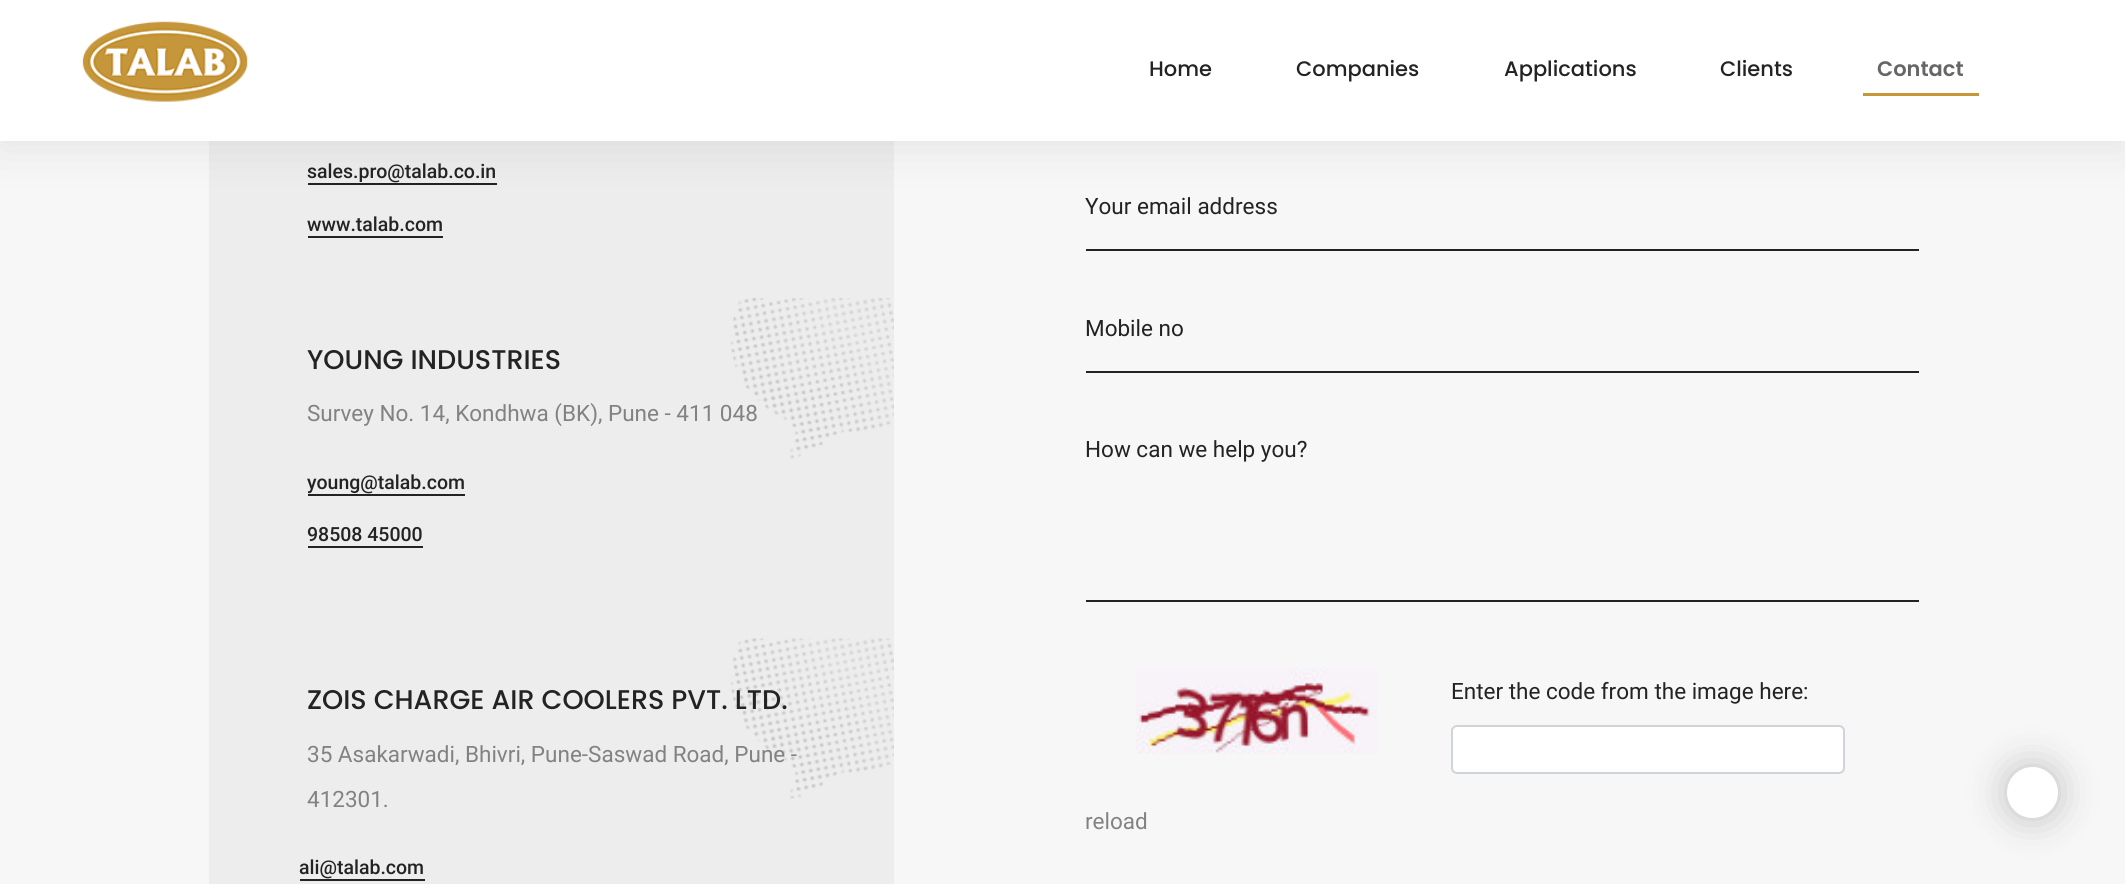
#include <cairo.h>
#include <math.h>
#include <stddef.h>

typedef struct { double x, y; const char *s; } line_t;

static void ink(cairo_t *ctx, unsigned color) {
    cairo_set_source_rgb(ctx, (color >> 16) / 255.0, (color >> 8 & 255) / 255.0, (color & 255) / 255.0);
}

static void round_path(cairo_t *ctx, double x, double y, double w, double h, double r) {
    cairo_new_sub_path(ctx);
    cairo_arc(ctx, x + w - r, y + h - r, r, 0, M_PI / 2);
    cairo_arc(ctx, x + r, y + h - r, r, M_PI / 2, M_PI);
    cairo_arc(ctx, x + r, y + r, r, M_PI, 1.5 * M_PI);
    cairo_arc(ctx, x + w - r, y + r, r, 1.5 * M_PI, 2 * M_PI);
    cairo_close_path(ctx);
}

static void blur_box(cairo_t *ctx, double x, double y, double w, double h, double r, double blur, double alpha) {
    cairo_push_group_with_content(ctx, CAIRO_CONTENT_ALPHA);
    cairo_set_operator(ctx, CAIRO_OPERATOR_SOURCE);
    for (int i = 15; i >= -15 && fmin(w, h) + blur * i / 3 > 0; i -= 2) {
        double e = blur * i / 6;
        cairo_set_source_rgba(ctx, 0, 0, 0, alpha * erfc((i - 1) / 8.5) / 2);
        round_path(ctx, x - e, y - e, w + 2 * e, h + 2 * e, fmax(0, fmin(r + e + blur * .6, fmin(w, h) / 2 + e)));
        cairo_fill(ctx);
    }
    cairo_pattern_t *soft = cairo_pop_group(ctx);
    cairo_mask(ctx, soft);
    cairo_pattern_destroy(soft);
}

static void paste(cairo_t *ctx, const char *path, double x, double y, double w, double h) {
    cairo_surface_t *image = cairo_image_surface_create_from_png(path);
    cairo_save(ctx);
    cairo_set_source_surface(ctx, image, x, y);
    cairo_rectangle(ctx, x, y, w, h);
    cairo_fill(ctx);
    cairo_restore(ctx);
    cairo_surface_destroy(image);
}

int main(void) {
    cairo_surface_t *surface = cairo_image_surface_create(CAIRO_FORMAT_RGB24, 2125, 884);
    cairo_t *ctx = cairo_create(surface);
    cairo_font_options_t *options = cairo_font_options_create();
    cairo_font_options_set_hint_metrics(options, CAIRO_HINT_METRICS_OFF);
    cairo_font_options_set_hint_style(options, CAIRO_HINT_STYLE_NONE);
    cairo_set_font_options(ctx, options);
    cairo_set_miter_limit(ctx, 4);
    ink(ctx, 0xF7F7F7);
    cairo_paint(ctx);
    ink(ctx, 0xEDEDED);
    cairo_rectangle(ctx, 209, 141, 685, 743);
    cairo_fill(ctx);
    ink(ctx, 0x232323);
    cairo_rectangle(ctx, 308, 183, 189, 2);
    cairo_fill(ctx);
    ink(ctx, 0x000000);
    blur_box(ctx, 0, 0, 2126, 141, 0, 26, 0.1);
    ink(ctx, 0xFFFFFF);
    cairo_rectangle(ctx, 0, 0, 2125, 141);
    cairo_fill(ctx);
    paste(ctx, "media/1.png", 82, 21, 166, 81);
    cairo_select_font_face(ctx, "Poppins Medium", CAIRO_FONT_SLANT_NORMAL, CAIRO_FONT_WEIGHT_NORMAL);
    cairo_set_font_size(ctx, 21);
    ink(ctx, 0x232323);
    {
        static const line_t items[] = {
            {1149, 76, "Home"},
            {1296, 76, "Companies"},
            {1504, 76, "Applications"},
            {1720, 76, "Clients"},
        };
        for (size_t i = 0; i < sizeof items / sizeof *items; i++) {
            cairo_move_to(ctx, items[i].x, items[i].y);
            cairo_show_text(ctx, items[i].s);
        }
    }
    ink(ctx, 0xC6963A);
    cairo_rectangle(ctx, 1863, 93, 116, 3);
    cairo_fill(ctx);
    cairo_select_font_face(ctx, "Poppins SemiBold", CAIRO_FONT_SLANT_NORMAL, CAIRO_FONT_WEIGHT_NORMAL);
    ink(ctx, 0x666666);
    cairo_move_to(ctx, 1877, 76);
    cairo_show_text(ctx, "Contact");
    cairo_select_font_face(ctx, "Roboto Medium", CAIRO_FONT_SLANT_NORMAL, CAIRO_FONT_WEIGHT_NORMAL);
    cairo_set_font_size(ctx, 19.5);
    ink(ctx, 0x232323);
    cairo_move_to(ctx, 307, 178);
    cairo_show_text(ctx, "sales.pro@talab.co.in");
    cairo_move_to(ctx, 307, 231);
    cairo_show_text(ctx, "www.talab.com");
    cairo_rectangle(ctx, 308, 236, 135, 2);
    cairo_fill(ctx);
    paste(ctx, "media/2.png", 730, 298, 164, 161);
    cairo_select_font_face(ctx, "Poppins Medium", CAIRO_FONT_SLANT_NORMAL, CAIRO_FONT_WEIGHT_NORMAL);
    cairo_set_font_size(ctx, 27);
    cairo_move_to(ctx, 307, 369);
    cairo_show_text(ctx, "YOUNG INDUSTRIES");
    cairo_select_font_face(ctx, "Roboto", CAIRO_FONT_SLANT_NORMAL, CAIRO_FONT_WEIGHT_NORMAL);
    cairo_set_font_size(ctx, 22.5);
    ink(ctx, 0x828282);
    cairo_move_to(ctx, 307, 421);
    cairo_show_text(ctx, "Survey No. 14, Kondhwa (BK), Pune - 411 048");
    cairo_select_font_face(ctx, "Roboto Medium", CAIRO_FONT_SLANT_NORMAL, CAIRO_FONT_WEIGHT_NORMAL);
    cairo_set_font_size(ctx, 19.5);
    ink(ctx, 0x232323);
    cairo_move_to(ctx, 307, 489);
    cairo_show_text(ctx, "young@talab.com");
    cairo_rectangle(ctx, 308, 494, 157, 2);
    cairo_fill(ctx);
    cairo_move_to(ctx, 307, 541);
    cairo_show_text(ctx, "98508 45000");
    cairo_rectangle(ctx, 308, 546, 115, 2);
    cairo_fill(ctx);
    paste(ctx, "media/3.png", 730, 638, 164, 161);
    cairo_select_font_face(ctx, "Poppins Medium", CAIRO_FONT_SLANT_NORMAL, CAIRO_FONT_WEIGHT_NORMAL);
    cairo_set_font_size(ctx, 27);
    cairo_move_to(ctx, 307, 709);
    cairo_show_text(ctx, "ZOIS CHARGE AIR COOLERS PVT. LTD.");
    cairo_select_font_face(ctx, "Roboto", CAIRO_FONT_SLANT_NORMAL, CAIRO_FONT_WEIGHT_NORMAL);
    cairo_set_font_size(ctx, 22.5);
    ink(ctx, 0x828282);
    cairo_move_to(ctx, 307, 762);
    cairo_show_text(ctx, "35 Asakarwadi, Bhivri, Pune-Saswad Road, Pune -");
    cairo_move_to(ctx, 307, 807);
    cairo_show_text(ctx, "412301.");
    cairo_select_font_face(ctx, "Roboto Medium", CAIRO_FONT_SLANT_NORMAL, CAIRO_FONT_WEIGHT_NORMAL);
    cairo_set_font_size(ctx, 19.5);
    ink(ctx, 0x232323);
    cairo_move_to(ctx, 299, 874);
    cairo_show_text(ctx, "ali@talab.com");
    cairo_rectangle(ctx, 300, 879, 125, 2);
    cairo_fill(ctx);
    cairo_rectangle(ctx, 1086, 249, 833, 2);
    cairo_fill(ctx);
    cairo_select_font_face(ctx, "Roboto", CAIRO_FONT_SLANT_NORMAL, CAIRO_FONT_WEIGHT_NORMAL);
    cairo_set_font_size(ctx, 22.5);
    cairo_move_to(ctx, 1085, 214);
    cairo_show_text(ctx, "Your email address");
    cairo_rectangle(ctx, 1086, 371, 833, 2);
    cairo_fill(ctx);
    cairo_move_to(ctx, 1085, 336);
    cairo_show_text(ctx, "Mobile no");
    cairo_rectangle(ctx, 1086, 600, 833, 2);
    cairo_fill(ctx);
    cairo_move_to(ctx, 1085, 457);
    cairo_show_text(ctx, "How can we help you?");
    cairo_move_to(ctx, 1451, 699);
    cairo_show_text(ctx, "Enter the code from the image here:");
    ink(ctx, 0xFFFFFF);
    round_path(ctx, 1452, 726, 392, 47, 5);
    cairo_fill_preserve(ctx);
    ink(ctx, 0xCED4DA);
    cairo_stroke(ctx);
    paste(ctx, "media/4.png", 1136, 668, 241, 86);
    ink(ctx, 0x828282);
    cairo_move_to(ctx, 1085, 829);
    cairo_show_text(ctx, "reload");
    ink(ctx, 0x171717);
    blur_box(ctx, 2007, 767, 51, 51, 25.5, 19, 0.25);
    ink(ctx, 0xFFFFFF);
    cairo_arc(ctx, 2032.5, 792.5, 25.5, 0, 2 * M_PI);
    cairo_fill(ctx);
    cairo_surface_write_to_png(surface, "image.png");
    cairo_font_options_destroy(options);
    cairo_destroy(ctx);
    cairo_surface_destroy(surface);
    return 0;
}
